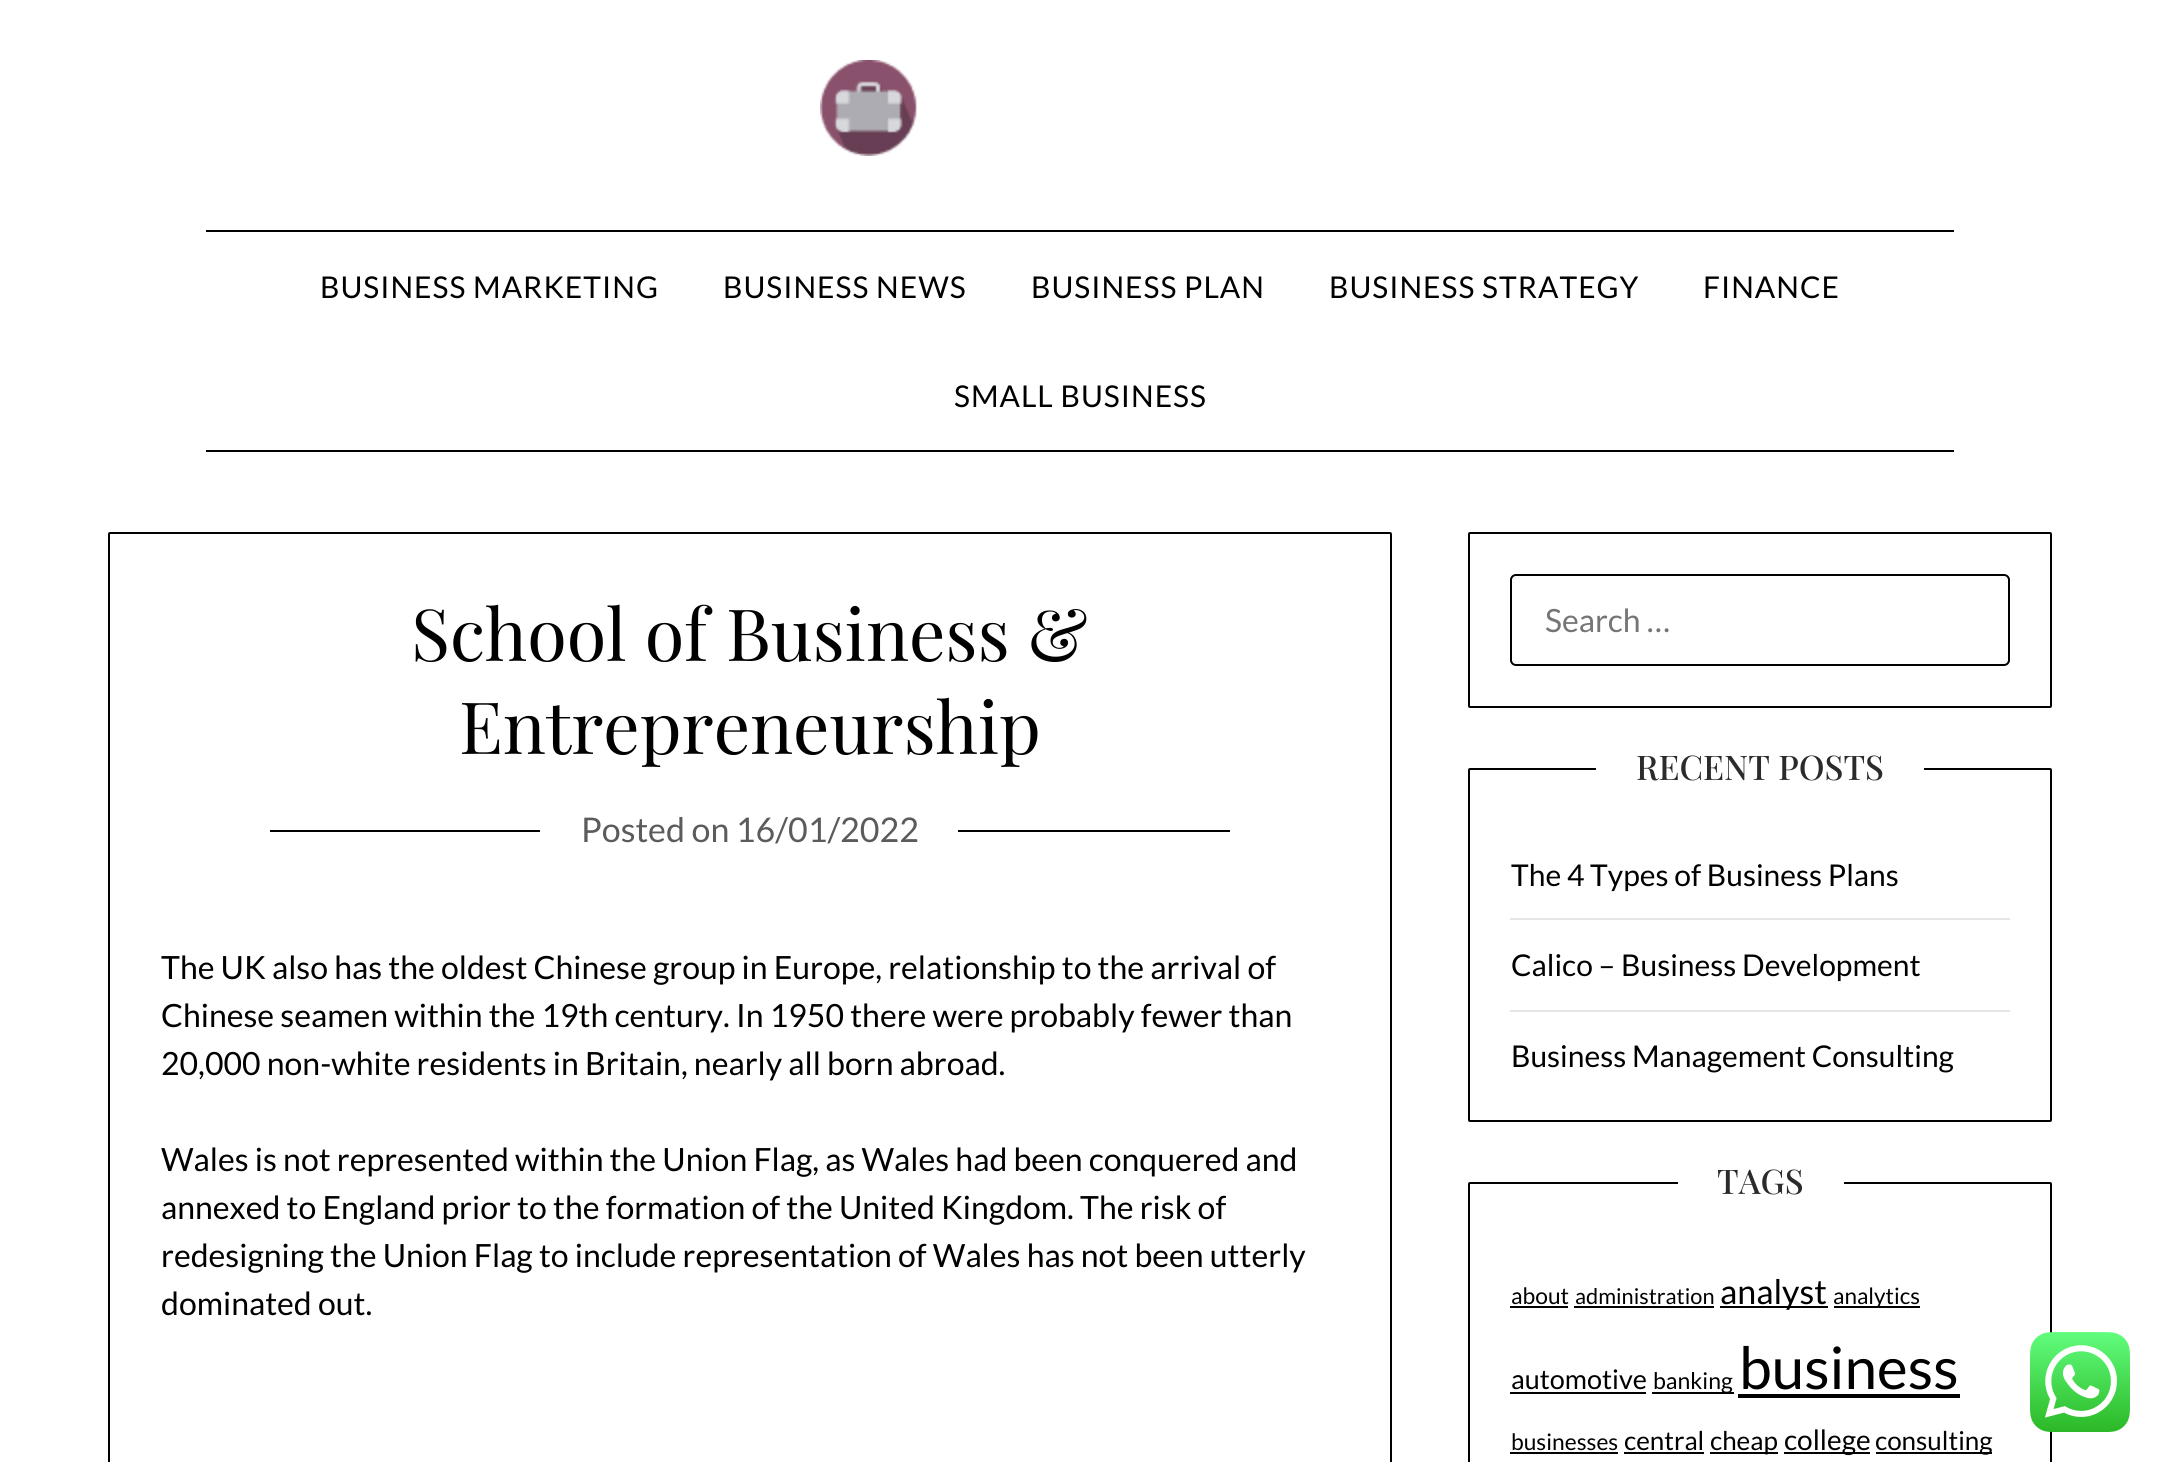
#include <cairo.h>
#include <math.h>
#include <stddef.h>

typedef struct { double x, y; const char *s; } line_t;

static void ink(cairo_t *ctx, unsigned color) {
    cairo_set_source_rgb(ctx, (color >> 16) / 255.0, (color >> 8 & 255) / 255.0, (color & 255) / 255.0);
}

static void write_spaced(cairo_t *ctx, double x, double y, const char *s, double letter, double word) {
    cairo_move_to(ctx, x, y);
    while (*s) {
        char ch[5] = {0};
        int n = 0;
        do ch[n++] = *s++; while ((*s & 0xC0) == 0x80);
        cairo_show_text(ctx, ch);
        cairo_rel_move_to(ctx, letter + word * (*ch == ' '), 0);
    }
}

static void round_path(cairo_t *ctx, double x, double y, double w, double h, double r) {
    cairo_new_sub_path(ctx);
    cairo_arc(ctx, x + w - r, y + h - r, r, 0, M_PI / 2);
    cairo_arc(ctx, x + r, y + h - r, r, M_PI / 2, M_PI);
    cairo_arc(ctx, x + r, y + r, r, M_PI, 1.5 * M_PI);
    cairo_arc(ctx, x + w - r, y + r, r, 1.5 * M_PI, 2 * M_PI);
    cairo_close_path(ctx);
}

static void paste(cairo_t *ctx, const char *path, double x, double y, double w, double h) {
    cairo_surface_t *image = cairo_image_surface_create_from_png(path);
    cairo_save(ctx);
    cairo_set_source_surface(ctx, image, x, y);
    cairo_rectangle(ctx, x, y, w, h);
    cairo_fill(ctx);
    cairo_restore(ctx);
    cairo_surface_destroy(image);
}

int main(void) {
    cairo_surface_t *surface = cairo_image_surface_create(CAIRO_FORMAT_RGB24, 2160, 1462);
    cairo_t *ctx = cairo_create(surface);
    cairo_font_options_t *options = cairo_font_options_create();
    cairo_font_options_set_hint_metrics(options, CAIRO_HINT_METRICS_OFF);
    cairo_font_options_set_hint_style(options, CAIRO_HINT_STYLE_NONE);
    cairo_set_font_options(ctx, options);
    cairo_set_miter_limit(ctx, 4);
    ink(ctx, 0xFFFFFF);
    cairo_paint(ctx);
    paste(ctx, "media/1.png", 820, 60, 97, 96);
    ink(ctx, 0x000000);
    cairo_rectangle(ctx, 206, 230, 1748, 2);
    cairo_fill(ctx);
    cairo_rectangle(ctx, 206, 450, 1748, 2);
    cairo_fill(ctx);
    cairo_select_font_face(ctx, "Lato", CAIRO_FONT_SLANT_NORMAL, CAIRO_FONT_WEIGHT_NORMAL);
    cairo_set_font_size(ctx, 30);
    {
        static const line_t items[] = {
            {320, 298, "BUSINESS MARKETING"},
            {723, 298, "BUSINESS NEWS"},
            {1031, 298, "BUSINESS PLAN"},
            {1329, 298, "BUSINESS STRATEGY"},
            {1703, 298, "FINANCE"},
            {954, 407, "SMALL BUSINESS"},
        };
        for (size_t i = 0; i < sizeof items / sizeof *items; i++) {
            write_spaced(ctx, items[i].x, items[i].y, items[i].s, 1, 0);
        }
    }
    round_path(ctx, 109, 533, 1282, 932, 1);
    cairo_stroke(ctx);
    cairo_select_font_face(ctx, "Playfair Display", CAIRO_FONT_SLANT_NORMAL, CAIRO_FONT_WEIGHT_NORMAL);
    cairo_set_font_size(ctx, 72);
    cairo_move_to(ctx, 411, 661);
    cairo_show_text(ctx, "School of Business &");
    cairo_move_to(ctx, 459, 754);
    cairo_show_text(ctx, "Entrepreneurship");
    cairo_rectangle(ctx, 270, 830, 960, 2);
    cairo_fill(ctx);
    ink(ctx, 0xFFFFFF);
    cairo_rectangle(ctx, 540, 830, 418, 2);
    cairo_fill(ctx);
    cairo_select_font_face(ctx, "Lato", CAIRO_FONT_SLANT_NORMAL, CAIRO_FONT_WEIGHT_NORMAL);
    cairo_set_font_size(ctx, 34);
    ink(ctx, 0x5B5B5B);
    cairo_move_to(ctx, 581, 842);
    cairo_show_text(ctx, "Posted on 16/01/2022");
    cairo_set_font_size(ctx, 32);
    ink(ctx, 0x000000);
    {
        static const line_t items[] = {
            {161, 979, "The UK also has the oldest Chinese group in Europe, relationship to the arrival of"},
            {161, 1027, "Chinese seamen within the 19th century. In 1950 there were probably fewer than"},
            {161, 1075, "20,000 non-white residents in Britain, nearly all born abroad."},
            {161, 1171, "Wales is not represented within the Union Flag, as Wales had been conquered and"},
            {161, 1219, "annexed to England prior to the formation of the United Kingdom. The risk of"},
            {161, 1267, "redesigning the Union Flag to include representation of Wales has not been utterly"},
            {161, 1315, "dominated out."},
        };
        for (size_t i = 0; i < sizeof items / sizeof *items; i++) {
            cairo_move_to(ctx, items[i].x, items[i].y);
            cairo_show_text(ctx, items[i].s);
        }
    }
    round_path(ctx, 1469, 533, 582, 174, 1);
    cairo_stroke(ctx);
    round_path(ctx, 1511, 575, 498, 90, 5);
    cairo_stroke(ctx);
    ink(ctx, 0x757575);
    cairo_move_to(ctx, 1545, 632);
    cairo_show_text(ctx, "Search …");
    round_path(ctx, 1469, 769, 582, 352, 1);
    ink(ctx, 0x000000);
    cairo_stroke(ctx);
    ink(ctx, 0xFFFFFF);
    cairo_rectangle(ctx, 1596, 768, 328, 2);
    cairo_fill(ctx);
    cairo_select_font_face(ctx, "Playfair Display Medium", CAIRO_FONT_SLANT_NORMAL, CAIRO_FONT_WEIGHT_NORMAL);
    cairo_set_font_size(ctx, 34);
    ink(ctx, 0x2B2B2B);
    cairo_move_to(ctx, 1636, 780);
    cairo_show_text(ctx, "RECENT POSTS");
    ink(ctx, 0xE6E6E6);
    cairo_rectangle(ctx, 1510, 918, 500, 2);
    cairo_fill(ctx);
    cairo_select_font_face(ctx, "Lato", CAIRO_FONT_SLANT_NORMAL, CAIRO_FONT_WEIGHT_NORMAL);
    cairo_set_font_size(ctx, 30);
    ink(ctx, 0x000000);
    cairo_move_to(ctx, 1511, 886);
    cairo_show_text(ctx, "The 4 Types of Business Plans");
    ink(ctx, 0xE6E6E6);
    cairo_rectangle(ctx, 1510, 1010, 500, 2);
    cairo_fill(ctx);
    ink(ctx, 0x000000);
    cairo_move_to(ctx, 1511, 976);
    cairo_show_text(ctx, "Calico – Business Development");
    cairo_move_to(ctx, 1511, 1067);
    cairo_show_text(ctx, "Business Management Consulting");
    round_path(ctx, 1469, 1183, 582, 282, 1);
    cairo_stroke(ctx);
    ink(ctx, 0xFFFFFF);
    cairo_rectangle(ctx, 1678, 1182, 166, 2);
    cairo_fill(ctx);
    cairo_select_font_face(ctx, "Playfair Display Medium", CAIRO_FONT_SLANT_NORMAL, CAIRO_FONT_WEIGHT_NORMAL);
    cairo_set_font_size(ctx, 34);
    ink(ctx, 0x2B2B2B);
    cairo_move_to(ctx, 1717, 1194);
    cairo_show_text(ctx, "TAGS");
    cairo_select_font_face(ctx, "Lato", CAIRO_FONT_SLANT_NORMAL, CAIRO_FONT_WEIGHT_NORMAL);
    cairo_set_font_size(ctx, 22.75);
    ink(ctx, 0x000000);
    cairo_move_to(ctx, 1511, 1304);
    cairo_show_text(ctx, "about");
    cairo_rectangle(ctx, 1510, 1306, 58, 2);
    cairo_fill(ctx);
    cairo_set_font_size(ctx, 21.75);
    cairo_move_to(ctx, 1575, 1304);
    cairo_show_text(ctx, "administration");
    cairo_rectangle(ctx, 1574, 1306, 140, 2);
    cairo_fill(ctx);
    cairo_rectangle(ctx, 1720, 1306, 108, 2);
    cairo_fill(ctx);
    cairo_set_font_size(ctx, 34);
    cairo_move_to(ctx, 1720, 1304);
    cairo_show_text(ctx, "analyst");
    cairo_rectangle(ctx, 1834, 1306, 86, 2);
    cairo_fill(ctx);
    cairo_set_font_size(ctx, 22.5);
    cairo_move_to(ctx, 1833, 1304);
    cairo_show_text(ctx, "analytics");
    cairo_set_font_size(ctx, 27);
    cairo_move_to(ctx, 1511, 1389);
    cairo_show_text(ctx, "automotive");
    cairo_rectangle(ctx, 1510, 1392, 136, 2);
    cairo_fill(ctx);
    cairo_rectangle(ctx, 1652, 1392, 82, 2);
    cairo_fill(ctx);
    cairo_set_font_size(ctx, 23);
    cairo_move_to(ctx, 1653, 1389);
    cairo_show_text(ctx, "banking");
    cairo_set_font_size(ctx, 58.5);
    cairo_move_to(ctx, 1739, 1389);
    cairo_show_text(ctx, "business");
    cairo_rectangle(ctx, 1738, 1394, 222, 4);
    cairo_fill(ctx);
    cairo_set_font_size(ctx, 22.75);
    cairo_move_to(ctx, 1511, 1450);
    cairo_show_text(ctx, "businesses");
    cairo_rectangle(ctx, 1510, 1452, 108, 2);
    cairo_fill(ctx);
    cairo_set_font_size(ctx, 26);
    cairo_move_to(ctx, 1624, 1450);
    cairo_show_text(ctx, "central");
    cairo_rectangle(ctx, 1624, 1452, 80, 2);
    cairo_fill(ctx);
    cairo_rectangle(ctx, 1710, 1452, 68, 2);
    cairo_fill(ctx);
    cairo_move_to(ctx, 1710, 1450);
    cairo_show_text(ctx, "cheap");
    cairo_rectangle(ctx, 1784, 1452, 86, 2);
    cairo_fill(ctx);
    cairo_set_font_size(ctx, 28);
    cairo_move_to(ctx, 1784, 1450);
    cairo_show_text(ctx, "college");
    cairo_rectangle(ctx, 1876, 1452, 116, 2);
    cairo_fill(ctx);
    cairo_set_font_size(ctx, 26);
    cairo_move_to(ctx, 1875, 1450);
    cairo_show_text(ctx, "consulting");
    paste(ctx, "media/2.png", 2030, 1332, 100, 100);
    cairo_surface_write_to_png(surface, "image.png");
    cairo_font_options_destroy(options);
    cairo_destroy(ctx);
    cairo_surface_destroy(surface);
    return 0;
}
